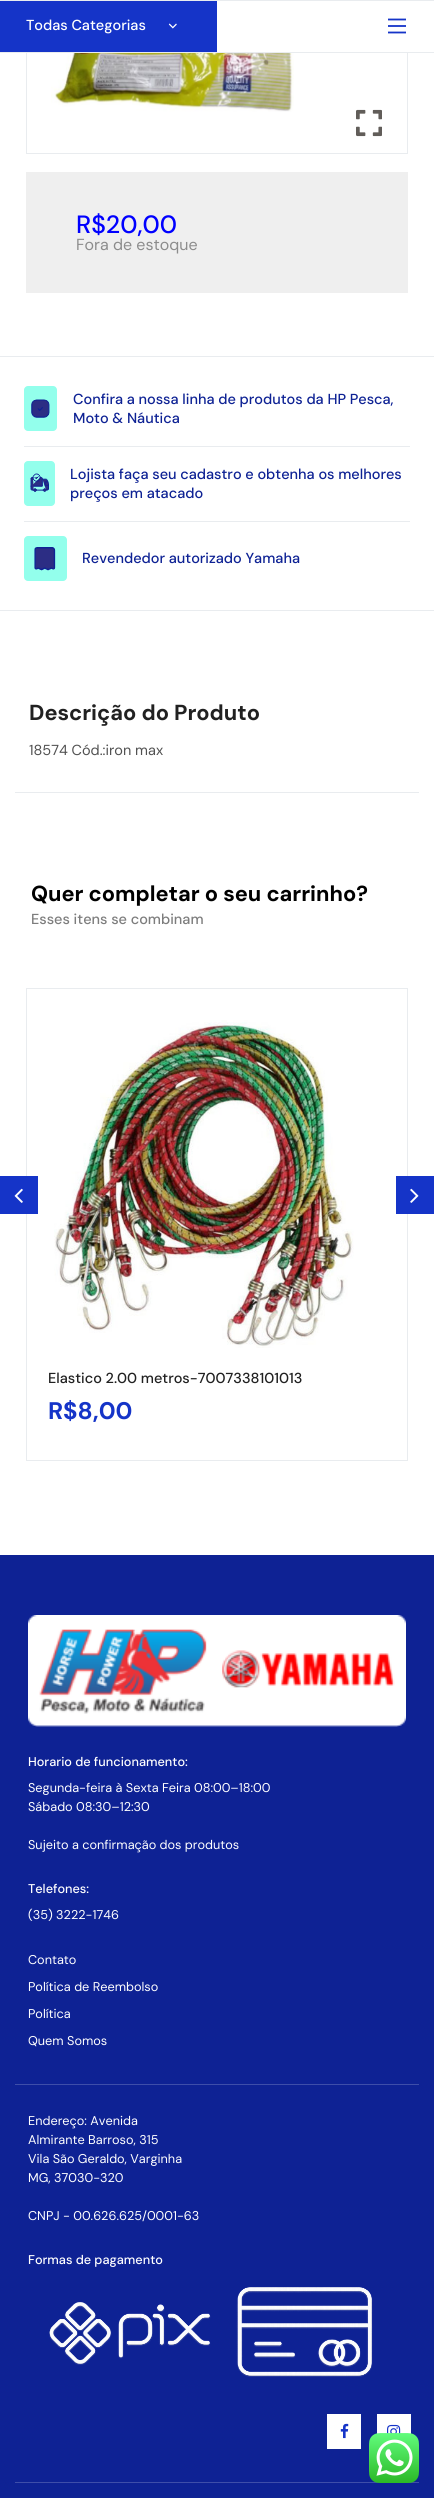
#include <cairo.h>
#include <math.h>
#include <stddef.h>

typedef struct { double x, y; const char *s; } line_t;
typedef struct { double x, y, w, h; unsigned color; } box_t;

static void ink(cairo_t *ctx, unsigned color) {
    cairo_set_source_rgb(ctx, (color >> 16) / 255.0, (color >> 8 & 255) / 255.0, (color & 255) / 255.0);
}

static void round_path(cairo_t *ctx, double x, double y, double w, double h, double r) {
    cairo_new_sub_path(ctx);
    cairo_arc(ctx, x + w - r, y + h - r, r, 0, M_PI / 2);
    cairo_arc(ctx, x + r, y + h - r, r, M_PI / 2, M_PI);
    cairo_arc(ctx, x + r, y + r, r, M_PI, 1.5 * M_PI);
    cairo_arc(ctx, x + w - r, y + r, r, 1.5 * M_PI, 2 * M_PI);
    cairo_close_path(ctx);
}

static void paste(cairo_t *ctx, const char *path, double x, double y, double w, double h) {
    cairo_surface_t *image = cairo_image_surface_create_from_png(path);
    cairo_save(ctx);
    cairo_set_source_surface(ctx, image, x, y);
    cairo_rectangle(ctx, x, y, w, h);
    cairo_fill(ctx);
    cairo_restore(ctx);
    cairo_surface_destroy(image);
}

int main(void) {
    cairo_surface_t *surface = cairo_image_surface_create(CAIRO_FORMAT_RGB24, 434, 2498);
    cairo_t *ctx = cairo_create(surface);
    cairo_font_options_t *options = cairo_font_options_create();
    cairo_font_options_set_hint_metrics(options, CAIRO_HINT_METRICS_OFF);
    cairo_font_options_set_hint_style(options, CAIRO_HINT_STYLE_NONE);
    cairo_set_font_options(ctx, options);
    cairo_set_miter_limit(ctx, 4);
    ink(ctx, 0xFFFFFF);
    cairo_paint(ctx);
    cairo_rectangle(ctx, 26.5, -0.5, 381, 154);
    ink(ctx, 0xE9ECEF);
    cairo_set_line_width(ctx, 1);
    cairo_stroke(ctx);
    {
        static const box_t items[] = {
            {407, 1, 1, 51, 0xFFFFFF},
            {0, 0, 434, 1, 0xE9ECEF},
            {0, 52, 434, 1, 0xE9ECEF},
            {0, 1, 217, 51, 0x1534C8},
        };
        for (size_t i = 0; i < sizeof items / sizeof *items; i++) {
            ink(ctx, items[i].color);
            cairo_rectangle(ctx, items[i].x, items[i].y, items[i].w, items[i].h);
            cairo_fill(ctx);
        }
    }
    cairo_select_font_face(ctx, "DM Sans Medium", CAIRO_FONT_SLANT_NORMAL, CAIRO_FONT_WEIGHT_NORMAL);
    cairo_set_font_size(ctx, 14.5);
    ink(ctx, 0xFFFFFF);
    cairo_move_to(ctx, 26, 30);
    cairo_show_text(ctx, "Todas Categorias");
    paste(ctx, "media/1.png", 168, 23, 9, 6);
    cairo_new_path(ctx);
    cairo_move_to(ctx, 388, 19.5);
    cairo_line_to(ctx, 406, 19.5);
    ink(ctx, 0x1534C8);
    cairo_set_line_width(ctx, 1.8);
    cairo_stroke(ctx);
    ink(ctx, 0x2C48CE);
    cairo_rectangle(ctx, 388, 25, 18, 2);
    cairo_fill(ctx);
    cairo_new_path(ctx);
    cairo_move_to(ctx, 388, 32.5);
    cairo_line_to(ctx, 406, 32.5);
    ink(ctx, 0x1534C8);
    cairo_stroke(ctx);
    ink(ctx, 0xE9ECEF);
    cairo_rectangle(ctx, 0, 356, 434, 1);
    cairo_fill(ctx);
    paste(ctx, "media/2.png", 51, 53, 243, 59);
    paste(ctx, "media/3.png", 356, 109, 26, 28);
    ink(ctx, 0xEFEFEF);
    cairo_rectangle(ctx, 26, 172, 382, 121);
    cairo_fill(ctx);
    cairo_set_font_size(ctx, 25);
    ink(ctx, 0x0000FF);
    cairo_move_to(ctx, 76, 233);
    cairo_show_text(ctx, "R$20,00");
    cairo_select_font_face(ctx, "DM Sans", CAIRO_FONT_SLANT_NORMAL, CAIRO_FONT_WEIGHT_NORMAL);
    cairo_set_font_size(ctx, 16);
    ink(ctx, 0x8C8C8C);
    cairo_move_to(ctx, 76, 250);
    cairo_show_text(ctx, "Fora de estoque");
    ink(ctx, 0xE9ECEF);
    cairo_rectangle(ctx, 0, 610, 434, 1);
    cairo_fill(ctx);
    ink(ctx, 0x93FFEC);
    round_path(ctx, 24, 386, 33, 45, 4);
    cairo_fill(ctx);
    paste(ctx, "media/4.png", 31, 399, 19, 19);
    cairo_select_font_face(ctx, "DM Sans Medium", CAIRO_FONT_SLANT_NORMAL, CAIRO_FONT_WEIGHT_NORMAL);
    cairo_set_font_size(ctx, 14.5);
    ink(ctx, 0x0E2294);
    cairo_move_to(ctx, 73, 404);
    cairo_show_text(ctx, "Confira a nossa linha de produtos da HP Pesca,");
    cairo_move_to(ctx, 73, 423);
    cairo_show_text(ctx, "Moto & Náutica");
    ink(ctx, 0xE9ECEF);
    cairo_rectangle(ctx, 24, 446, 386, 1);
    cairo_fill(ctx);
    ink(ctx, 0x93FFEC);
    round_path(ctx, 24, 461, 31, 45, 4);
    cairo_fill(ctx);
    paste(ctx, "media/5.png", 30, 473, 19, 19);
    ink(ctx, 0x0E2294);
    cairo_move_to(ctx, 70, 479);
    cairo_show_text(ctx, "Lojista faça seu cadastro e obtenha os melhores");
    cairo_move_to(ctx, 70, 498);
    cairo_show_text(ctx, "preços em atacado");
    ink(ctx, 0xE9ECEF);
    cairo_rectangle(ctx, 24, 521, 386, 1);
    cairo_fill(ctx);
    ink(ctx, 0x93FFEC);
    round_path(ctx, 24, 536, 43, 45, 4);
    cairo_fill(ctx);
    paste(ctx, "media/6.png", 34, 547, 22, 24);
    ink(ctx, 0x0E2294);
    cairo_move_to(ctx, 82, 563);
    cairo_show_text(ctx, "Revendedor autorizado Yamaha");
    ink(ctx, 0xE9ECEF);
    cairo_rectangle(ctx, 15, 792, 404, 1);
    cairo_fill(ctx);
    cairo_select_font_face(ctx, "DM Sans", CAIRO_FONT_SLANT_NORMAL, CAIRO_FONT_WEIGHT_BOLD);
    cairo_set_font_size(ctx, 21.75);
    ink(ctx, 0x212121);
    cairo_move_to(ctx, 29, 720);
    cairo_show_text(ctx, "Descrição do Produto");
    cairo_select_font_face(ctx, "DM Sans", CAIRO_FONT_SLANT_NORMAL, CAIRO_FONT_WEIGHT_NORMAL);
    cairo_set_font_size(ctx, 14.5);
    ink(ctx, 0x515151);
    cairo_move_to(ctx, 29, 755);
    cairo_show_text(ctx, "18574 Cód.:iron max");
    cairo_select_font_face(ctx, "DM Sans", CAIRO_FONT_SLANT_NORMAL, CAIRO_FONT_WEIGHT_BOLD);
    cairo_set_font_size(ctx, 21.75);
    ink(ctx, 0x000000);
    cairo_move_to(ctx, 31, 901);
    cairo_show_text(ctx, "Quer completar o seu carrinho?");
    cairo_select_font_face(ctx, "DM Sans Medium", CAIRO_FONT_SLANT_NORMAL, CAIRO_FONT_WEIGHT_NORMAL);
    cairo_set_font_size(ctx, 14.5);
    ink(ctx, 0x7D7D7D);
    cairo_move_to(ctx, 31, 924);
    cairo_show_text(ctx, "Esses itens se combinam");
    cairo_rectangle(ctx, 26.5, 988.5, 381, 472);
    ink(ctx, 0xE9ECEF);
    cairo_set_line_width(ctx, 1);
    cairo_stroke(ctx);
    ink(ctx, 0x1534C8);
    cairo_rectangle(ctx, 0, 1176, 38, 38);
    cairo_fill(ctx);
    paste(ctx, "media/7.png", 14, 1188, 9, 15);
    cairo_rectangle(ctx, 396, 1176, 38, 38);
    cairo_fill(ctx);
    paste(ctx, "media/8.png", 410, 1188, 9, 15);
    paste(ctx, "media/9.png", 54, 1020, 300, 328);
    ink(ctx, 0x212121);
    cairo_move_to(ctx, 48, 1383);
    cairo_show_text(ctx, "Elastico 2.00 metros-7007338101013");
    cairo_select_font_face(ctx, "DM Sans", CAIRO_FONT_SLANT_NORMAL, CAIRO_FONT_WEIGHT_BOLD);
    cairo_set_font_size(ctx, 24);
    ink(ctx, 0x1534C8);
    cairo_move_to(ctx, 48, 1419);
    cairo_show_text(ctx, "R$8,00");
    ink(ctx, 0x0E2294);
    cairo_rectangle(ctx, 0, 1555, 434, 943);
    cairo_fill(ctx);
    paste(ctx, "media/10.png", 28, 1615, 378, 112);
    cairo_select_font_face(ctx, "DM Sans Medium", CAIRO_FONT_SLANT_NORMAL, CAIRO_FONT_WEIGHT_NORMAL);
    cairo_set_font_size(ctx, 12.7);
    ink(ctx, 0xFFFFFF);
    cairo_move_to(ctx, 28, 1766);
    cairo_show_text(ctx, "Horario de funcionamento:");
    cairo_select_font_face(ctx, "DM Sans", CAIRO_FONT_SLANT_NORMAL, CAIRO_FONT_WEIGHT_NORMAL);
    {
        static const line_t items[] = {
            {28, 1792, "Segunda-feira à Sexta Feira 08:00–18:00"},
            {28, 1811, "Sábado 08:30–12:30"},
            {28, 1849, "Sujeito a confirmação dos produtos"},
        };
        for (size_t i = 0; i < sizeof items / sizeof *items; i++) {
            cairo_move_to(ctx, items[i].x, items[i].y);
            cairo_show_text(ctx, items[i].s);
        }
    }
    cairo_select_font_face(ctx, "DM Sans Medium", CAIRO_FONT_SLANT_NORMAL, CAIRO_FONT_WEIGHT_NORMAL);
    cairo_move_to(ctx, 28, 1893);
    cairo_show_text(ctx, "Telefones:");
    cairo_select_font_face(ctx, "DM Sans", CAIRO_FONT_SLANT_NORMAL, CAIRO_FONT_WEIGHT_NORMAL);
    {
        static const line_t items[] = {
            {28, 1919, "(35) 3222-1746"},
            {28, 1964, "Contato"},
            {28, 1991, "Política de Reembolso"},
            {28, 2018, "Política"},
            {28, 2045, "Quem Somos"},
        };
        for (size_t i = 0; i < sizeof items / sizeof *items; i++) {
            cairo_move_to(ctx, items[i].x, items[i].y);
            cairo_show_text(ctx, items[i].s);
        }
    }
    ink(ctx, 0x3E4EA9);
    cairo_rectangle(ctx, 15, 2084, 404, 1);
    cairo_fill(ctx);
    ink(ctx, 0xFFFFFF);
    {
        static const line_t items[] = {
            {28, 2125, "Endereço: Avenida"},
            {28, 2144, "Almirante Barroso, 315"},
            {28, 2163, "Vila São Geraldo, Varginha"},
            {28, 2182, "MG, 37030-320"},
            {28, 2220, "CNPJ - 00.626.625/0001-63"},
        };
        for (size_t i = 0; i < sizeof items / sizeof *items; i++) {
            cairo_move_to(ctx, items[i].x, items[i].y);
            cairo_show_text(ctx, items[i].s);
        }
    }
    cairo_select_font_face(ctx, "DM Sans Medium", CAIRO_FONT_SLANT_NORMAL, CAIRO_FONT_WEIGHT_NORMAL);
    cairo_move_to(ctx, 28, 2264);
    cairo_show_text(ctx, "Formas de pagamento");
    paste(ctx, "media/11.png", 49, 2287, 324, 90);
    cairo_rectangle(ctx, 327, 2414, 34, 35);
    cairo_fill(ctx);
    paste(ctx, "media/12.png", 340, 2423, 9, 16);
    cairo_rectangle(ctx, 377, 2414, 34, 20);
    cairo_fill(ctx);
    paste(ctx, "media/13.png", 387, 2424, 14, 10);
    ink(ctx, 0x3E4EA9);
    cairo_rectangle(ctx, 15, 2482, 404, 1);
    cairo_fill(ctx);
    paste(ctx, "media/14.png", 369, 2433, 50, 50);
    cairo_surface_write_to_png(surface, "image.png");
    cairo_font_options_destroy(options);
    cairo_destroy(ctx);
    cairo_surface_destroy(surface);
    return 0;
}
